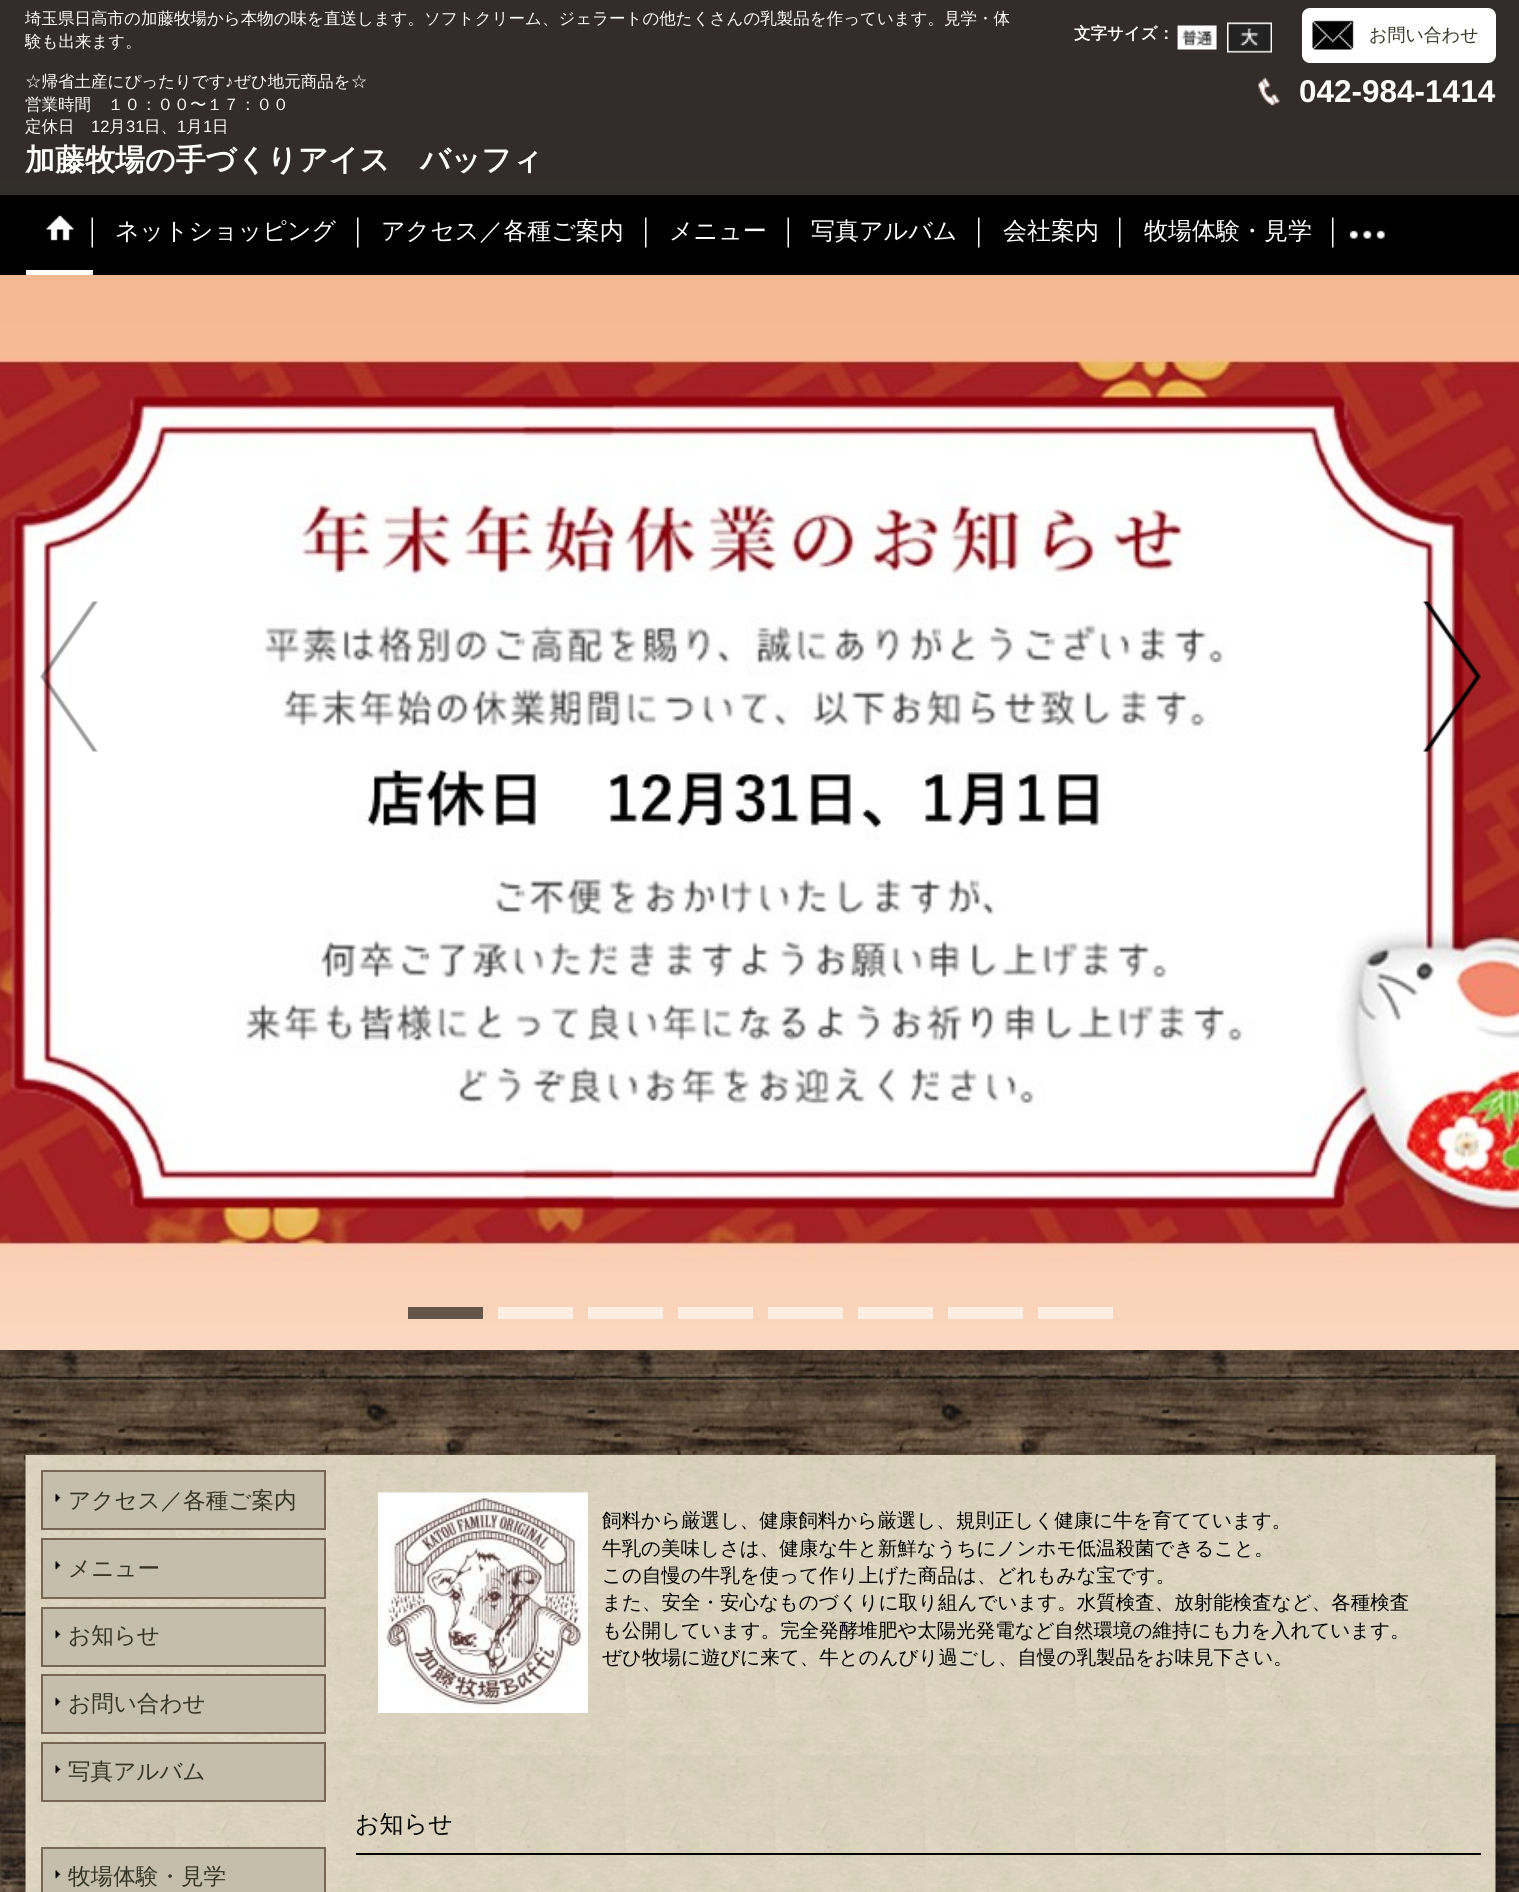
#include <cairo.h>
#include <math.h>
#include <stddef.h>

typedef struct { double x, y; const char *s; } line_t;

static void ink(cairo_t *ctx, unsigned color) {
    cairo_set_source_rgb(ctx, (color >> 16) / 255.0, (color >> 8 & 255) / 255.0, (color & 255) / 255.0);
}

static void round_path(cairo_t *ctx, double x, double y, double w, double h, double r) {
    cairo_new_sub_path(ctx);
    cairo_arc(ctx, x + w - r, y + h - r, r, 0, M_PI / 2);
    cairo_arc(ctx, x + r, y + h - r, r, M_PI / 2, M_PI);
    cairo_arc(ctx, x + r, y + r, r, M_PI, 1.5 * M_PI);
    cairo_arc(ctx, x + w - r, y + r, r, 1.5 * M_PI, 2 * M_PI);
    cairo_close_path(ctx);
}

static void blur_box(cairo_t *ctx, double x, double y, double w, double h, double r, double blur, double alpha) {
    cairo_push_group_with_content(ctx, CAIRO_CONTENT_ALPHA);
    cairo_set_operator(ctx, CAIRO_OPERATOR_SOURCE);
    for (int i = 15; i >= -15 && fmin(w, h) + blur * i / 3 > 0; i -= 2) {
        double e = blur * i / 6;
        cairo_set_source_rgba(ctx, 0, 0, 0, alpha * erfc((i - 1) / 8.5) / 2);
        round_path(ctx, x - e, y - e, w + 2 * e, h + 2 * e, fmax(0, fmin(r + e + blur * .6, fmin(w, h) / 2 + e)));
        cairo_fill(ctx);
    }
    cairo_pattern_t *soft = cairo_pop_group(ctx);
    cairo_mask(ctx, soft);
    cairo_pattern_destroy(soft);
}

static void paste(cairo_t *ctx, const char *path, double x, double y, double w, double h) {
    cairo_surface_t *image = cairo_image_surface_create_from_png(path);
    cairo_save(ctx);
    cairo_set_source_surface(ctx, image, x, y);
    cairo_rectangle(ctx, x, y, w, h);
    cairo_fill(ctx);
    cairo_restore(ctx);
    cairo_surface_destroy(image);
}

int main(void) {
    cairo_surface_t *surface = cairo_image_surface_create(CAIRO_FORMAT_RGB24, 1519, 1892);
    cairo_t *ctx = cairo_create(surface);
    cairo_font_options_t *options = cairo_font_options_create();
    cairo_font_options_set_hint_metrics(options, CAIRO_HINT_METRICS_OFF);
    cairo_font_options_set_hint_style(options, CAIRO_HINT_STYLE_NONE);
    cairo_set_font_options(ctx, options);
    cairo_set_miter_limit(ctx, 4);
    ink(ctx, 0xFFFFFF);
    cairo_paint(ctx);
    paste(ctx, "media/1.png", 0, 1350, 1519, 542);
    paste(ctx, "media/2.png", 0, 0, 1519, 1350);
    paste(ctx, "media/3.png", 40, 601, 58, 151);
    paste(ctx, "media/4.png", 1423, 601, 58, 151);
    ink(ctx, 0x64554B);
    cairo_rectangle(ctx, 408, 1307, 75, 12);
    cairo_fill(ctx);
    ink(ctx, 0xFDEEE4);
    cairo_rectangle(ctx, 498, 1307, 75, 12);
    cairo_fill(ctx);
    cairo_rectangle(ctx, 588, 1307, 75, 12);
    cairo_fill(ctx);
    cairo_rectangle(ctx, 678, 1307, 75, 12);
    cairo_fill(ctx);
    cairo_rectangle(ctx, 768, 1307, 75, 12);
    cairo_fill(ctx);
    cairo_rectangle(ctx, 858, 1307, 75, 12);
    cairo_fill(ctx);
    cairo_rectangle(ctx, 948, 1307, 75, 12);
    cairo_fill(ctx);
    cairo_rectangle(ctx, 1038, 1307, 75, 12);
    cairo_fill(ctx);
    cairo_set_source_rgba(ctx, 0.133, 0.133, 0.133, 0.92);
    cairo_rectangle(ctx, 0, 0, 1519, 195);
    cairo_fill(ctx);
    cairo_select_font_face(ctx, "WenQuanYi Zen Hei Medium", CAIRO_FONT_SLANT_NORMAL, CAIRO_FONT_WEIGHT_NORMAL);
    cairo_set_font_size(ctx, 16.5);
    ink(ctx, 0xFFFFFF);
    {
        static const line_t items[] = {
            {25, 24, "埼玉県日高市の加藤牧場から本物の味を直送します。ソフトクリーム、ジェラートの他たくさんの乳製品を作っています。見学・体"},
            {25, 47, "験も出来ます。"},
            {25, 87, "☆帰省土産にぴったりです"},
        };
        for (size_t i = 0; i < sizeof items / sizeof *items; i++) {
            cairo_move_to(ctx, items[i].x, items[i].y);
            cairo_show_text(ctx, items[i].s);
        }
    }
    cairo_select_font_face(ctx, "Liberation Sans", CAIRO_FONT_SLANT_NORMAL, CAIRO_FONT_WEIGHT_NORMAL);
    cairo_move_to(ctx, 225, 87);
    cairo_show_text(ctx, "♪");
    cairo_select_font_face(ctx, "WenQuanYi Zen Hei Medium", CAIRO_FONT_SLANT_NORMAL, CAIRO_FONT_WEIGHT_NORMAL);
    {
        static const line_t items[] = {
            {234, 87, "ぜひ地元商品を☆"},
            {25, 110, "営業時間　１０：００〜１７：００"},
            {25, 132, "定休日"},
        };
        for (size_t i = 0; i < sizeof items / sizeof *items; i++) {
            cairo_move_to(ctx, items[i].x, items[i].y);
            cairo_show_text(ctx, items[i].s);
        }
    }
    cairo_select_font_face(ctx, "Liberation Sans", CAIRO_FONT_SLANT_NORMAL, CAIRO_FONT_WEIGHT_NORMAL);
    cairo_move_to(ctx, 91, 132);
    cairo_show_text(ctx, "12");
    cairo_select_font_face(ctx, "WenQuanYi Zen Hei Medium", CAIRO_FONT_SLANT_NORMAL, CAIRO_FONT_WEIGHT_NORMAL);
    cairo_move_to(ctx, 109, 132);
    cairo_show_text(ctx, "月");
    cairo_select_font_face(ctx, "Liberation Sans", CAIRO_FONT_SLANT_NORMAL, CAIRO_FONT_WEIGHT_NORMAL);
    cairo_move_to(ctx, 126, 132);
    cairo_show_text(ctx, "31");
    cairo_select_font_face(ctx, "WenQuanYi Zen Hei Medium", CAIRO_FONT_SLANT_NORMAL, CAIRO_FONT_WEIGHT_NORMAL);
    cairo_move_to(ctx, 144, 132);
    cairo_show_text(ctx, "日、");
    cairo_select_font_face(ctx, "Liberation Sans", CAIRO_FONT_SLANT_NORMAL, CAIRO_FONT_WEIGHT_NORMAL);
    cairo_move_to(ctx, 177, 132);
    cairo_show_text(ctx, "1");
    cairo_select_font_face(ctx, "WenQuanYi Zen Hei Medium", CAIRO_FONT_SLANT_NORMAL, CAIRO_FONT_WEIGHT_NORMAL);
    cairo_move_to(ctx, 186, 132);
    cairo_show_text(ctx, "月");
    cairo_select_font_face(ctx, "Liberation Sans", CAIRO_FONT_SLANT_NORMAL, CAIRO_FONT_WEIGHT_NORMAL);
    cairo_move_to(ctx, 203, 132);
    cairo_show_text(ctx, "1");
    cairo_select_font_face(ctx, "WenQuanYi Zen Hei Medium", CAIRO_FONT_SLANT_NORMAL, CAIRO_FONT_WEIGHT_NORMAL);
    cairo_move_to(ctx, 212, 132);
    cairo_show_text(ctx, "日");
    cairo_select_font_face(ctx, "WenQuanYi Zen Hei", CAIRO_FONT_SLANT_NORMAL, CAIRO_FONT_WEIGHT_BOLD);
    cairo_set_font_size(ctx, 30);
    cairo_move_to(ctx, 25, 170);
    cairo_show_text(ctx, "加藤牧場の手づくりアイス　バッフィ");
    cairo_set_font_size(ctx, 16.5);
    cairo_move_to(ctx, 1074, 39);
    cairo_show_text(ctx, "文字サイズ：");
    paste(ctx, "media/5.png", 1177, 25, 40, 25);
    paste(ctx, "media/6.png", 1227, 22, 45, 31);
    round_path(ctx, 1302, 8, 194, 55, 8);
    cairo_fill(ctx);
    paste(ctx, "media/7.png", 1312, 20, 42, 30);
    cairo_select_font_face(ctx, "WenQuanYi Zen Hei Medium", CAIRO_FONT_SLANT_NORMAL, CAIRO_FONT_WEIGHT_NORMAL);
    cairo_set_font_size(ctx, 18);
    ink(ctx, 0x353526);
    cairo_move_to(ctx, 1369, 41);
    cairo_show_text(ctx, "お問い合わせ");
    paste(ctx, "media/8.png", 1258, 77, 22, 29);
    cairo_select_font_face(ctx, "Liberation Sans", CAIRO_FONT_SLANT_NORMAL, CAIRO_FONT_WEIGHT_BOLD);
    cairo_set_font_size(ctx, 31.5);
    ink(ctx, 0xFFFFFF);
    cairo_move_to(ctx, 1299, 102);
    cairo_show_text(ctx, "042-984-1414");
    ink(ctx, 0x000000);
    cairo_rectangle(ctx, 0, 195, 1519, 80);
    cairo_fill(ctx);
    ink(ctx, 0xFFFFFF);
    cairo_rectangle(ctx, 26, 270, 67, 5);
    cairo_fill(ctx);
    paste(ctx, "media/9.png", 91, 217, 2, 31);
    paste(ctx, "media/10.png", 46, 215, 28, 26);
    paste(ctx, "media/11.png", 357, 217, 2, 31);
    cairo_select_font_face(ctx, "WenQuanYi Zen Hei Medium", CAIRO_FONT_SLANT_NORMAL, CAIRO_FONT_WEIGHT_NORMAL);
    cairo_set_font_size(ctx, 24);
    cairo_move_to(ctx, 115, 239);
    cairo_show_text(ctx, "ネットショッピング");
    paste(ctx, "media/11.png", 645, 217, 2, 31);
    cairo_move_to(ctx, 381, 239);
    cairo_show_text(ctx, "アクセス／各種ご案内");
    paste(ctx, "media/9.png", 787, 217, 2, 31);
    cairo_move_to(ctx, 669, 239);
    cairo_show_text(ctx, "メニュー");
    paste(ctx, "media/11.png", 978, 217, 2, 31);
    cairo_move_to(ctx, 811, 239);
    cairo_show_text(ctx, "写真アルバム");
    paste(ctx, "media/11.png", 1119, 217, 2, 31);
    cairo_move_to(ctx, 1003, 239);
    cairo_show_text(ctx, "会社案内");
    paste(ctx, "media/11.png", 1332, 217, 2, 31);
    cairo_move_to(ctx, 1144, 239);
    cairo_show_text(ctx, "牧場体験・見学");
    paste(ctx, "media/12.png", 1349, 230, 36, 9);
    ink(ctx, 0x000000);
    blur_box(ctx, 33, 1463, 1470, 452, 0, 7.5, 0.5);
    paste(ctx, "media/13.png", 25, 1455, 1471, 437);
    ink(ctx, 0xC5BEAA);
    cairo_rectangle(ctx, 42, 1471, 283, 58);
    cairo_fill_preserve(ctx);
    ink(ctx, 0x766652);
    cairo_stroke(ctx);
    paste(ctx, "media/14.png", 55, 1493, 6, 9);
    cairo_set_font_size(ctx, 22.6);
    ink(ctx, 0x353526);
    cairo_move_to(ctx, 68, 1508);
    cairo_show_text(ctx, "アクセス／各種ご案内");
    ink(ctx, 0xC5BEAA);
    cairo_rectangle(ctx, 42, 1539, 283, 59);
    cairo_fill_preserve(ctx);
    ink(ctx, 0x766652);
    cairo_stroke(ctx);
    paste(ctx, "media/15.png", 55, 1561, 6, 9);
    ink(ctx, 0x353526);
    cairo_move_to(ctx, 68, 1576);
    cairo_show_text(ctx, "メニュー");
    ink(ctx, 0xC5BEAA);
    cairo_rectangle(ctx, 42, 1608, 283, 58);
    cairo_fill_preserve(ctx);
    ink(ctx, 0x766652);
    cairo_stroke(ctx);
    paste(ctx, "media/15.png", 55, 1630, 6, 9);
    ink(ctx, 0x353526);
    cairo_move_to(ctx, 68, 1643);
    cairo_show_text(ctx, "お知らせ");
    ink(ctx, 0xC5BEAA);
    cairo_rectangle(ctx, 42, 1675, 283, 58);
    cairo_fill_preserve(ctx);
    ink(ctx, 0x766652);
    cairo_stroke(ctx);
    paste(ctx, "media/14.png", 55, 1697, 6, 9);
    ink(ctx, 0x353526);
    cairo_move_to(ctx, 68, 1711);
    cairo_show_text(ctx, "お問い合わせ");
    ink(ctx, 0xC5BEAA);
    cairo_rectangle(ctx, 42, 1743, 283, 58);
    cairo_fill_preserve(ctx);
    ink(ctx, 0x766652);
    cairo_stroke(ctx);
    paste(ctx, "media/15.png", 55, 1765, 6, 9);
    ink(ctx, 0x353526);
    cairo_move_to(ctx, 68, 1779);
    cairo_show_text(ctx, "写真アルバム");
    ink(ctx, 0xC5BEAA);
    cairo_rectangle(ctx, 42, 1848, 283, 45);
    cairo_fill_preserve(ctx);
    ink(ctx, 0x766652);
    cairo_stroke(ctx);
    paste(ctx, "media/15.png", 55, 1870, 6, 9);
    ink(ctx, 0x353526);
    cairo_move_to(ctx, 68, 1884);
    cairo_show_text(ctx, "牧場体験・見学");
    paste(ctx, "media/16.png", 378, 1492, 210, 221);
    cairo_set_font_size(ctx, 19.5);
    ink(ctx, 0x000000);
    {
        static const line_t items[] = {
            {602, 1527, "飼料から厳選し、健康飼料から厳選し、規則正しく健康に牛を育てています。"},
            {602, 1555, "牛乳の美味しさは、健康な牛と新鮮なうちにノンホモ低温殺菌できること。"},
            {602, 1582, "この自慢の牛乳を使って作り上げた商品は、どれもみな宝です。"},
            {602, 1609, "また、安全・安心なものづくりに取り組んでいます。水質検査、放射能検査など、各種検査"},
            {602, 1637, "も公開しています。完全発酵堆肥や太陽光発電など自然環境の維持にも力を入れています。"},
            {602, 1664, "ぜひ牧場に遊びに来て、牛とのんびり過ごし、自慢の乳製品をお味見下さい。"},
        };
        for (size_t i = 0; i < sizeof items / sizeof *items; i++) {
            cairo_move_to(ctx, items[i].x, items[i].y);
            cairo_show_text(ctx, items[i].s);
        }
    }
    cairo_rectangle(ctx, 356, 1853, 1125, 2);
    cairo_fill(ctx);
    cairo_set_font_size(ctx, 24);
    cairo_move_to(ctx, 355, 1832);
    cairo_show_text(ctx, "お知らせ");
    cairo_surface_write_to_png(surface, "image.png");
    cairo_font_options_destroy(options);
    cairo_destroy(ctx);
    cairo_surface_destroy(surface);
    return 0;
}
